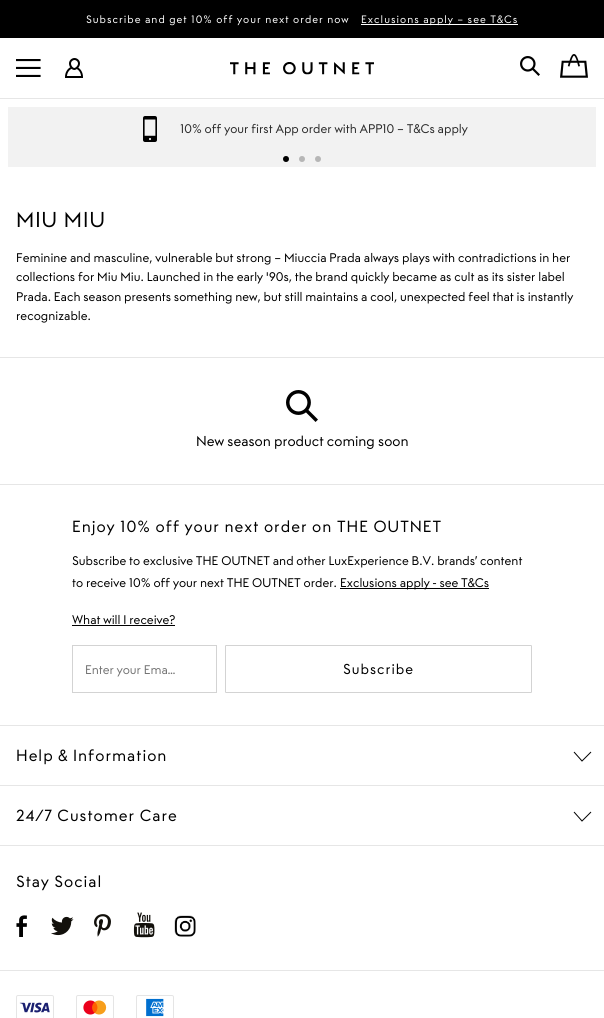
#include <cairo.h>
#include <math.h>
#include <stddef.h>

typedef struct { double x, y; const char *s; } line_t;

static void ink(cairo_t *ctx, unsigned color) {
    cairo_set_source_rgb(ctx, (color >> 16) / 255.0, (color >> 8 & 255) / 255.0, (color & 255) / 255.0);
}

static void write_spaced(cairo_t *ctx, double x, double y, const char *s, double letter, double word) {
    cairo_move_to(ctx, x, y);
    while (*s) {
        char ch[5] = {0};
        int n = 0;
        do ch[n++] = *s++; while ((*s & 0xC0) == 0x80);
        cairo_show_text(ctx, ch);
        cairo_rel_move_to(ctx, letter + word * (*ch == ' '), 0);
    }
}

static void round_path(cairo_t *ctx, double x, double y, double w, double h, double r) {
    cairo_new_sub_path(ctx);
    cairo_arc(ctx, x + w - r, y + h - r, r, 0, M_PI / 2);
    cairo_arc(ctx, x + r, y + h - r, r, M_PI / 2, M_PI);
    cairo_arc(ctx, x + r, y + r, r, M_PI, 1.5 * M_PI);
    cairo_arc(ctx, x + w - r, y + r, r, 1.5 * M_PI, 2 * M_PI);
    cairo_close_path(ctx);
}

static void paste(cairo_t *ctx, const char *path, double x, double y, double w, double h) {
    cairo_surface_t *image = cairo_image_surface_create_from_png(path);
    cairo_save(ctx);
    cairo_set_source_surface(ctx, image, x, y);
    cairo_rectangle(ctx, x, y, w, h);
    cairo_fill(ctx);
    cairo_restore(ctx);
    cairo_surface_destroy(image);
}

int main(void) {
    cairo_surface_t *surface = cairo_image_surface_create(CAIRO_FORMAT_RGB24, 604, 1018);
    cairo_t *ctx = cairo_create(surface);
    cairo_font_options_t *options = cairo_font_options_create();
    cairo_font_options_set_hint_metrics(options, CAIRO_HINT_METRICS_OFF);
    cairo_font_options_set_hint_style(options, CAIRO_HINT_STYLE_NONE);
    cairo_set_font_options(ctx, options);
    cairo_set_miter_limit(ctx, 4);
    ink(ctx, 0xFFFFFF);
    cairo_paint(ctx);
    ink(ctx, 0x000000);
    cairo_rectangle(ctx, 0, 0, 604, 38);
    cairo_fill(ctx);
    cairo_select_font_face(ctx, "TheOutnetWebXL", CAIRO_FONT_SLANT_NORMAL, CAIRO_FONT_WEIGHT_NORMAL);
    cairo_set_font_size(ctx, 12);
    ink(ctx, 0xFFFFFF);
    write_spaced(ctx, 86, 23, "Subscribe and get 10% off your next order now", 1, 0);
    cairo_rectangle(ctx, 361, 24, 157, 1);
    cairo_fill(ctx);
    write_spaced(ctx, 361, 23, "Exclusions apply – see T&Cs", 1, 0);
    ink(ctx, 0xE6E6E6);
    cairo_rectangle(ctx, 0, 98, 604, 1);
    cairo_fill(ctx);
    paste(ctx, "media/1.png", 16, 59, 25, 18);
    paste(ctx, "media/2.png", 65, 58, 18, 20);
    paste(ctx, "media/3.png", 230, 62, 144, 13);
    paste(ctx, "media/4.png", 520, 56, 20, 20);
    paste(ctx, "media/5.png", 560, 54, 28, 24);
    ink(ctx, 0xF2F2F2);
    cairo_rectangle(ctx, 8, 107, 588, 60);
    cairo_fill(ctx);
    paste(ctx, "media/6.png", 143, 116, 14, 26);
    cairo_set_font_size(ctx, 14);
    ink(ctx, 0x2B2B2B);
    cairo_move_to(ctx, 180, 133);
    cairo_show_text(ctx, "10% off your first App order with APP10 – T&Cs apply");
    ink(ctx, 0x000000);
    cairo_new_path(ctx);
    cairo_arc(ctx, 286, 159, 3, 0, 2 * M_PI);
    cairo_fill(ctx);
    ink(ctx, 0xB6B6B6);
    cairo_arc(ctx, 302, 159, 3, 0, 2 * M_PI);
    cairo_fill(ctx);
    cairo_arc(ctx, 318, 159, 3, 0, 2 * M_PI);
    cairo_fill(ctx);
    cairo_set_font_size(ctx, 24);
    ink(ctx, 0x000000);
    write_spaced(ctx, 16, 227, "MIU MIU", 1, 0);
    cairo_set_font_size(ctx, 14);
    {
        static const line_t items[] = {
            {16, 262, "Feminine and masculine, vulnerable but strong – Miuccia Prada always plays with contradictions in her"},
            {16, 281, "collections for Miu Miu. Launched in the early '90s, the brand quickly became as cult as its sister label"},
            {16, 301, "Prada. Each season presents something new, but still maintains a cool, unexpected feel that is instantly"},
            {16, 320, "recognizable."},
        };
        for (size_t i = 0; i < sizeof items / sizeof *items; i++) {
            cairo_move_to(ctx, items[i].x, items[i].y);
            cairo_show_text(ctx, items[i].s);
        }
    }
    ink(ctx, 0xE6E6E6);
    cairo_rectangle(ctx, 0, 357, 604, 1);
    cairo_fill(ctx);
    paste(ctx, "media/7.png", 286, 390, 32, 32);
    cairo_set_font_size(ctx, 16);
    ink(ctx, 0x000000);
    cairo_move_to(ctx, 196, 446);
    cairo_show_text(ctx, "New season product coming soon");
    ink(ctx, 0xE6E6E6);
    cairo_rectangle(ctx, 0, 484, 604, 1);
    cairo_fill(ctx);
    cairo_set_font_size(ctx, 18);
    ink(ctx, 0x000000);
    write_spaced(ctx, 72, 532, "Enjoy 10% off your next order on THE OUTNET", 1, 0);
    cairo_set_font_size(ctx, 14);
    cairo_move_to(ctx, 72, 565);
    cairo_show_text(ctx, "Subscribe to exclusive THE OUTNET and other LuxExperience B.V. brands’ content");
    cairo_move_to(ctx, 72, 587);
    cairo_show_text(ctx, "to receive 10% off your next THE OUTNET order.");
    cairo_rectangle(ctx, 340, 588, 149, 1);
    cairo_fill(ctx);
    cairo_move_to(ctx, 340, 587);
    cairo_show_text(ctx, "Exclusions apply - see T&Cs");
    cairo_move_to(ctx, 72, 624);
    cairo_show_text(ctx, "What will I receive?");
    cairo_rectangle(ctx, 72, 625, 103, 1);
    cairo_fill(ctx);
    cairo_rectangle(ctx, 72.5, 645.5, 144, 47);
    ink(ctx, 0xD3D3D3);
    cairo_set_line_width(ctx, 1);
    cairo_stroke(ctx);
    ink(ctx, 0x757575);
    cairo_move_to(ctx, 85, 674);
    cairo_show_text(ctx, "Enter your Ema…");
    round_path(ctx, 225.5, 645.5, 306, 47, 0.5);
    ink(ctx, 0xD3D3D3);
    cairo_stroke(ctx);
    cairo_set_font_size(ctx, 16);
    ink(ctx, 0x000000);
    write_spaced(ctx, 343, 674, "Subscribe", 1, 0);
    ink(ctx, 0xE6E6E6);
    cairo_rectangle(ctx, 0, 725, 604, 1);
    cairo_fill(ctx);
    cairo_new_path(ctx);
    cairo_move_to(ctx, 574, 752);
    cairo_line_to(ctx, 582, 761);
    cairo_line_to(ctx, 591, 752);
    ink(ctx, 0x000000);
    cairo_stroke(ctx);
    cairo_set_font_size(ctx, 18);
    write_spaced(ctx, 16, 761, "Help & Information", 1, 0);
    ink(ctx, 0xE6E6E6);
    cairo_rectangle(ctx, 0, 785, 604, 1);
    cairo_fill(ctx);
    cairo_new_path(ctx);
    cairo_move_to(ctx, 574, 812);
    cairo_line_to(ctx, 582, 821);
    cairo_line_to(ctx, 591, 812);
    ink(ctx, 0x000000);
    cairo_stroke(ctx);
    write_spaced(ctx, 16, 821, "24/7 Customer Care", 1, 0);
    ink(ctx, 0xE6E6E6);
    cairo_rectangle(ctx, 0, 845, 604, 1);
    cairo_fill(ctx);
    cairo_rectangle(ctx, 0, 970, 604, 1);
    cairo_fill(ctx);
    ink(ctx, 0x000000);
    write_spaced(ctx, 16, 887, "Stay Social", 1, 0);
    paste(ctx, "media/8.png", 16, 915, 11, 22);
    paste(ctx, "media/9.png", 51, 916, 23, 20);
    paste(ctx, "media/10.png", 94, 914, 17, 23);
    paste(ctx, "media/11.png", 133, 912, 22, 26);
    paste(ctx, "media/12.png", 174, 915, 22, 22);
    paste(ctx, "media/13.png", 16, 995, 38, 23);
    paste(ctx, "media/14.png", 76, 995, 38, 23);
    paste(ctx, "media/15.png", 136, 995, 38, 23);
    cairo_surface_write_to_png(surface, "image.png");
    cairo_font_options_destroy(options);
    cairo_destroy(ctx);
    cairo_surface_destroy(surface);
    return 0;
}
